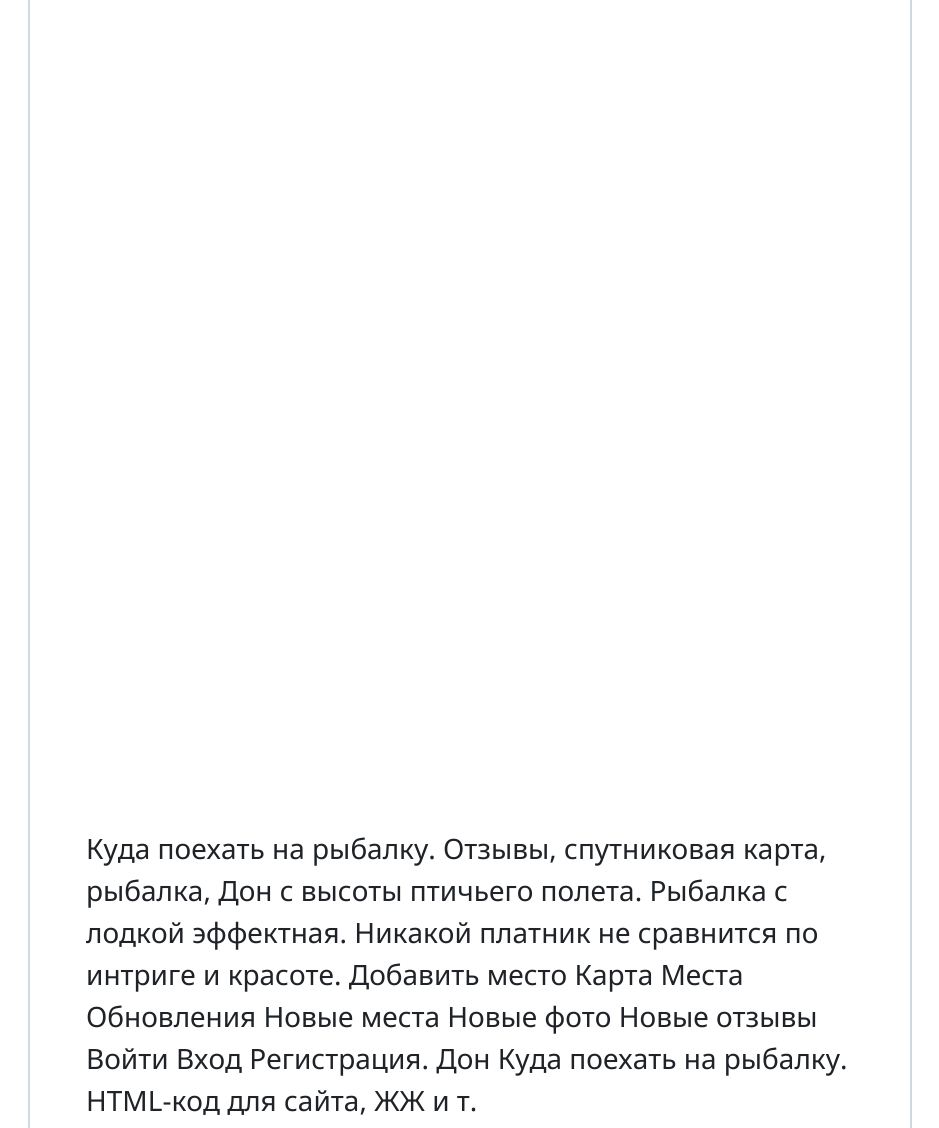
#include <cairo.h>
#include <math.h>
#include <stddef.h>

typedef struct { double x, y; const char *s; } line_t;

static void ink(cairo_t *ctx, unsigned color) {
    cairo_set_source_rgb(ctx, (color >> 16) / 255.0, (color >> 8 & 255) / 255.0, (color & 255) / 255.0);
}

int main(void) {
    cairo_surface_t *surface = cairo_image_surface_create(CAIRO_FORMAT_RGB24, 939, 1128);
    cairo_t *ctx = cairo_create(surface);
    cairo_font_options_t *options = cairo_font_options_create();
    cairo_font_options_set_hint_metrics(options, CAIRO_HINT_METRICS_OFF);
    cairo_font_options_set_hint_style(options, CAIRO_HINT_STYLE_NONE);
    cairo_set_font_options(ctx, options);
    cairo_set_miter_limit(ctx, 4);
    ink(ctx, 0xFFFFFF);
    cairo_paint(ctx);
    cairo_rectangle(ctx, 29, -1, 882, 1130);
    ink(ctx, 0xD1D9E0);
    cairo_stroke(ctx);
    cairo_select_font_face(ctx, "Noto Sans", CAIRO_FONT_SLANT_NORMAL, CAIRO_FONT_WEIGHT_NORMAL);
    cairo_set_font_size(ctx, 28);
    ink(ctx, 0x1F2328);
    {
        static const line_t items[] = {
            {86, 859, "Куда поехать на рыбалку. Отзывы, спутниковая карта,"},
            {86, 901, "рыбалка, Дон с высоты птичьего полета. Рыбалка с"},
            {86, 943, "лодкой эффектная. Никакой платник не сравнится по"},
            {86, 985, "интриге и красоте. Добавить место Карта Места"},
            {86, 1027, "Обновления Новые места Новые фото Новые отзывы"},
            {86, 1069, "Войти Вход Регистрация. Дон Куда поехать на рыбалку."},
            {86, 1111, "HTML-код для сайта, ЖЖ и т."},
        };
        for (size_t i = 0; i < sizeof items / sizeof *items; i++) {
            cairo_move_to(ctx, items[i].x, items[i].y);
            cairo_show_text(ctx, items[i].s);
        }
    }
    cairo_surface_write_to_png(surface, "image.png");
    cairo_font_options_destroy(options);
    cairo_destroy(ctx);
    cairo_surface_destroy(surface);
    return 0;
}
